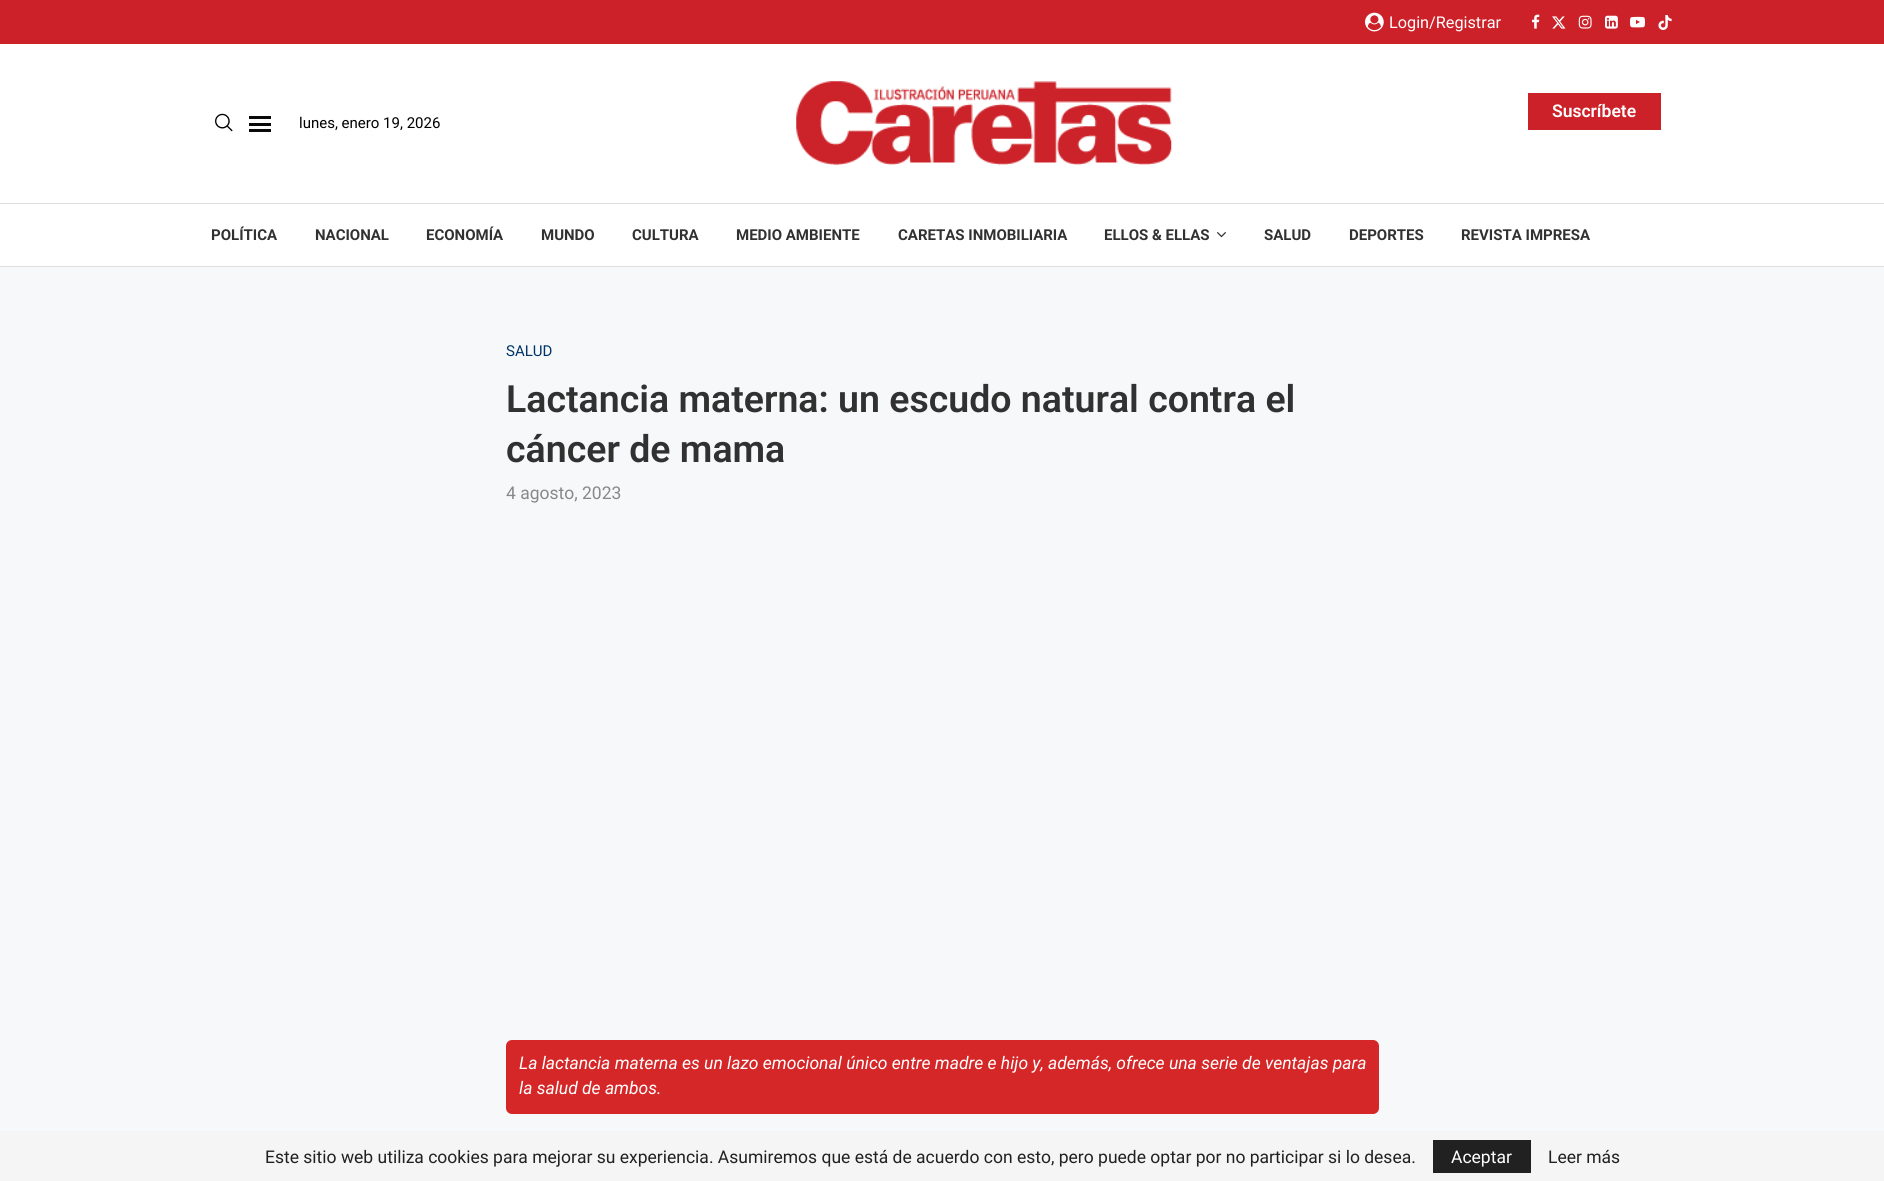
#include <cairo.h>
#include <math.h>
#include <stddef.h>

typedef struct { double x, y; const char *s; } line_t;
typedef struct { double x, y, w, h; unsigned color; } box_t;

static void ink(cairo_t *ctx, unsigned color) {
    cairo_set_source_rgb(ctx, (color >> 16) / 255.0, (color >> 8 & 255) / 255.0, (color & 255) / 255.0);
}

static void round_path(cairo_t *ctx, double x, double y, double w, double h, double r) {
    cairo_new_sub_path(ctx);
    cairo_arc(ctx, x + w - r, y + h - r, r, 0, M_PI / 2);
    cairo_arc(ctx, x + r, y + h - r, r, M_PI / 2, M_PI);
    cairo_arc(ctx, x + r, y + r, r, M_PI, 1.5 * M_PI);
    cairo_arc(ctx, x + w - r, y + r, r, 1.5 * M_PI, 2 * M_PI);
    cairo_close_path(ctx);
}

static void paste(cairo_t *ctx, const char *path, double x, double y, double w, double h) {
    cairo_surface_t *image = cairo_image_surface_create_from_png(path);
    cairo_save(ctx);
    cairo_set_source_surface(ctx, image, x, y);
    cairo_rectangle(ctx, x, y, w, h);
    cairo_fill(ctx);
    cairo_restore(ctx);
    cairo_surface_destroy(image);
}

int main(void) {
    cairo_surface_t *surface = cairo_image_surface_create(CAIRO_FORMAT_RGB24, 1884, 1181);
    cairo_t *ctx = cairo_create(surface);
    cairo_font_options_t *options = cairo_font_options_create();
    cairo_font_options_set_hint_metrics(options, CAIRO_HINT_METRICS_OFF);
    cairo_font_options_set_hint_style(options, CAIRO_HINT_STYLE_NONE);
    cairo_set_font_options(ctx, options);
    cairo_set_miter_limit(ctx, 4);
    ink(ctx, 0xF6F8FA);
    cairo_paint(ctx);
    ink(ctx, 0xCC2128);
    cairo_rectangle(ctx, 0, 0, 1884, 44);
    cairo_fill(ctx);
    paste(ctx, "media/1.png", 1365, 12, 19, 20);
    cairo_select_font_face(ctx, "Roboto", CAIRO_FONT_SLANT_NORMAL, CAIRO_FONT_WEIGHT_NORMAL);
    cairo_set_font_size(ctx, 16.25);
    ink(ctx, 0xFFFFFF);
    cairo_move_to(ctx, 1389, 28);
    cairo_show_text(ctx, "Login/Registrar");
    paste(ctx, "media/2.png", 1532, 14, 8, 15);
    paste(ctx, "media/3.png", 1552, 16, 14, 13);
    paste(ctx, "media/4.png", 1578, 15, 14, 14);
    paste(ctx, "media/5.png", 1605, 15, 13, 14);
    paste(ctx, "media/6.png", 1630, 16, 15, 12);
    paste(ctx, "media/7.png", 1658, 15, 14, 15);
    cairo_rectangle(ctx, 0, 44, 1884, 159);
    cairo_fill(ctx);
    paste(ctx, "media/8.png", 796, 81, 376, 84);
    ink(ctx, 0xCC2128);
    cairo_rectangle(ctx, 1528, 93, 133, 37);
    cairo_fill(ctx);
    cairo_select_font_face(ctx, "Roboto SemiBold", CAIRO_FONT_SLANT_NORMAL, CAIRO_FONT_WEIGHT_NORMAL);
    cairo_set_font_size(ctx, 17.5);
    ink(ctx, 0xFFFFFF);
    cairo_move_to(ctx, 1552, 117);
    cairo_show_text(ctx, "Suscríbete");
    paste(ctx, "media/9.png", 215, 113, 18, 19);
    {
        static const box_t items[] = {
            {249, 116, 22, 3, 0x0A0A0A},
            {249, 129, 22, 3, 0x0A0A0A},
            {249, 123, 22, 3, 0x0A0A0A},
        };
        for (size_t i = 0; i < sizeof items / sizeof *items; i++) {
            ink(ctx, items[i].color);
            cairo_rectangle(ctx, items[i].x, items[i].y, items[i].w, items[i].h);
            cairo_fill(ctx);
        }
    }
    cairo_select_font_face(ctx, "Roboto", CAIRO_FONT_SLANT_NORMAL, CAIRO_FONT_WEIGHT_NORMAL);
    cairo_set_font_size(ctx, 15);
    ink(ctx, 0x000000);
    cairo_move_to(ctx, 299, 128);
    cairo_show_text(ctx, "lunes, enero 19, 2026");
    {
        static const box_t items[] = {
            {0, 204, 1884, 62, 0xFFFFFF},
            {0, 203, 1884, 1, 0xDEDEDE},
            {0, 266, 1884, 1, 0xDEDEDE},
        };
        for (size_t i = 0; i < sizeof items / sizeof *items; i++) {
            ink(ctx, items[i].color);
            cairo_rectangle(ctx, items[i].x, items[i].y, items[i].w, items[i].h);
            cairo_fill(ctx);
        }
    }
    cairo_select_font_face(ctx, "Roboto", CAIRO_FONT_SLANT_NORMAL, CAIRO_FONT_WEIGHT_BOLD);
    ink(ctx, 0x313131);
    {
        static const line_t items[] = {
            {211, 240, "POLÍTICA"},
            {315, 240, "NACIONAL"},
            {426, 240, "ECONOMÍA"},
            {541, 240, "MUNDO"},
            {632, 240, "CULTURA"},
            {736, 240, "MEDIO AMBIENTE"},
            {898, 240, "CARETAS INMOBILIARIA"},
            {1104, 240, "ELLOS & ELLAS"},
        };
        for (size_t i = 0; i < sizeof items / sizeof *items; i++) {
            cairo_move_to(ctx, items[i].x, items[i].y);
            cairo_show_text(ctx, items[i].s);
        }
    }
    paste(ctx, "media/10.png", 1217, 232, 9, 6);
    {
        static const line_t items[] = {
            {1264, 240, "SALUD"},
            {1349, 240, "DEPORTES"},
            {1461, 240, "REVISTA IMPRESA"},
        };
        for (size_t i = 0; i < sizeof items / sizeof *items; i++) {
            cairo_move_to(ctx, items[i].x, items[i].y);
            cairo_show_text(ctx, items[i].s);
        }
    }
    cairo_select_font_face(ctx, "Roboto", CAIRO_FONT_SLANT_NORMAL, CAIRO_FONT_WEIGHT_NORMAL);
    ink(ctx, 0x003366);
    cairo_move_to(ctx, 506, 356);
    cairo_show_text(ctx, "SALUD");
    cairo_select_font_face(ctx, "Roboto SemiBold", CAIRO_FONT_SLANT_NORMAL, CAIRO_FONT_WEIGHT_NORMAL);
    cairo_set_font_size(ctx, 37.5);
    ink(ctx, 0x313131);
    cairo_move_to(ctx, 506, 412);
    cairo_show_text(ctx, "Lactancia materna: un escudo natural contra el");
    cairo_move_to(ctx, 506, 462);
    cairo_show_text(ctx, "cáncer de mama");
    cairo_select_font_face(ctx, "Roboto", CAIRO_FONT_SLANT_NORMAL, CAIRO_FONT_WEIGHT_NORMAL);
    cairo_set_font_size(ctx, 17.5);
    ink(ctx, 0x888888);
    cairo_move_to(ctx, 506, 499);
    cairo_show_text(ctx, "4 agosto, 2023");
    ink(ctx, 0xD62728);
    round_path(ctx, 506, 1040, 873, 74, 6);
    cairo_fill(ctx);
    cairo_select_font_face(ctx, "Roboto", CAIRO_FONT_SLANT_ITALIC, CAIRO_FONT_WEIGHT_NORMAL);
    ink(ctx, 0xFFFFFF);
    cairo_move_to(ctx, 519, 1069);
    cairo_show_text(ctx, "La lactancia materna es un lazo emocional único entre madre e hijo y, además, ofrece una serie de ventajas para");
    cairo_move_to(ctx, 519, 1094);
    cairo_show_text(ctx, "la salud de ambos.");
    ink(ctx, 0xF5F5F5);
    cairo_rectangle(ctx, 0, 1131, 1884, 50);
    cairo_fill(ctx);
    cairo_select_font_face(ctx, "Roboto", CAIRO_FONT_SLANT_NORMAL, CAIRO_FONT_WEIGHT_NORMAL);
    ink(ctx, 0x212121);
    cairo_move_to(ctx, 265, 1163);
    cairo_show_text(ctx, "Este sitio web utiliza cookies para mejorar su experiencia. Asumiremos que está de acuerdo con esto, pero puede optar por no participar si lo desea.");
    cairo_rectangle(ctx, 1433, 1140, 98, 33);
    cairo_fill(ctx);
    ink(ctx, 0xFFFFFF);
    cairo_move_to(ctx, 1451, 1163);
    cairo_show_text(ctx, "Aceptar");
    ink(ctx, 0x212121);
    cairo_move_to(ctx, 1548, 1163);
    cairo_show_text(ctx, "Leer más");
    cairo_surface_write_to_png(surface, "image.png");
    cairo_font_options_destroy(options);
    cairo_destroy(ctx);
    cairo_surface_destroy(surface);
    return 0;
}
